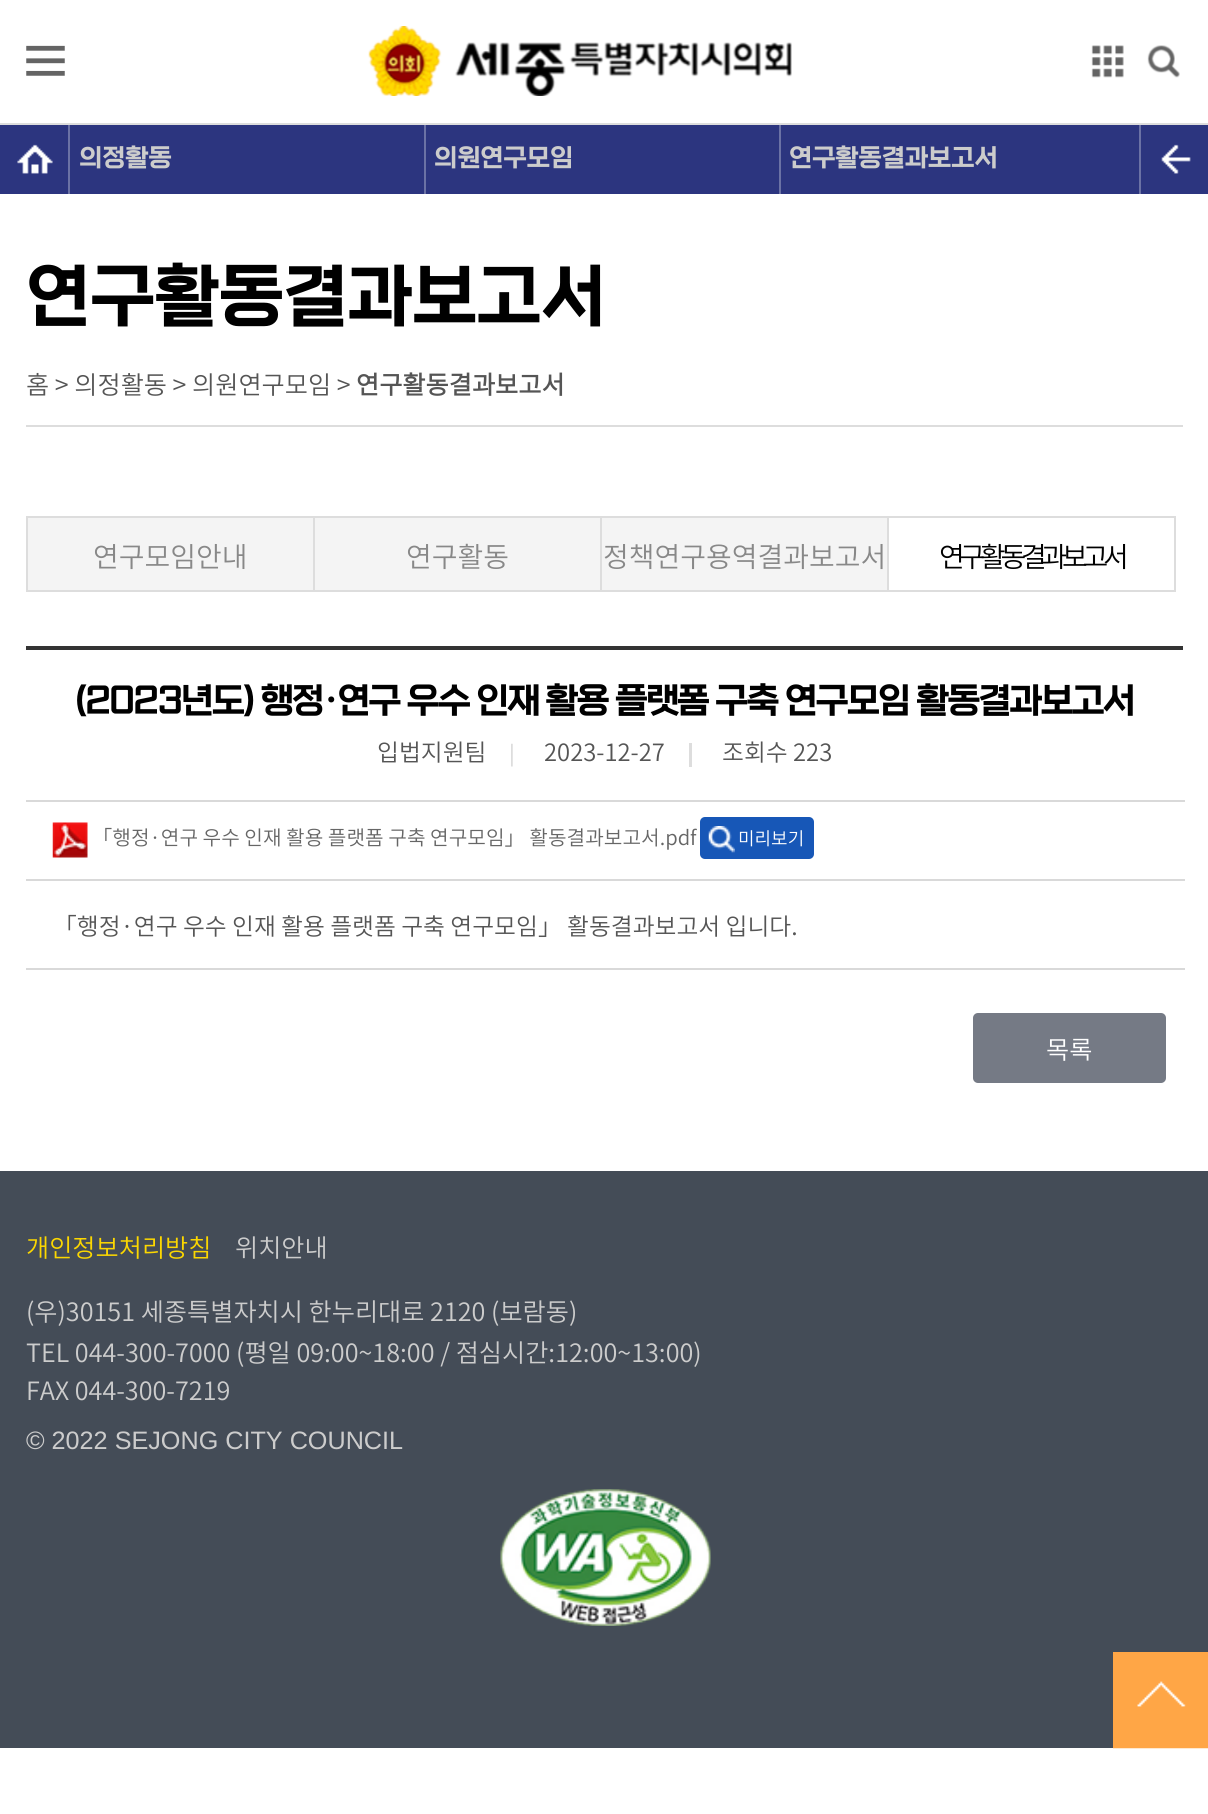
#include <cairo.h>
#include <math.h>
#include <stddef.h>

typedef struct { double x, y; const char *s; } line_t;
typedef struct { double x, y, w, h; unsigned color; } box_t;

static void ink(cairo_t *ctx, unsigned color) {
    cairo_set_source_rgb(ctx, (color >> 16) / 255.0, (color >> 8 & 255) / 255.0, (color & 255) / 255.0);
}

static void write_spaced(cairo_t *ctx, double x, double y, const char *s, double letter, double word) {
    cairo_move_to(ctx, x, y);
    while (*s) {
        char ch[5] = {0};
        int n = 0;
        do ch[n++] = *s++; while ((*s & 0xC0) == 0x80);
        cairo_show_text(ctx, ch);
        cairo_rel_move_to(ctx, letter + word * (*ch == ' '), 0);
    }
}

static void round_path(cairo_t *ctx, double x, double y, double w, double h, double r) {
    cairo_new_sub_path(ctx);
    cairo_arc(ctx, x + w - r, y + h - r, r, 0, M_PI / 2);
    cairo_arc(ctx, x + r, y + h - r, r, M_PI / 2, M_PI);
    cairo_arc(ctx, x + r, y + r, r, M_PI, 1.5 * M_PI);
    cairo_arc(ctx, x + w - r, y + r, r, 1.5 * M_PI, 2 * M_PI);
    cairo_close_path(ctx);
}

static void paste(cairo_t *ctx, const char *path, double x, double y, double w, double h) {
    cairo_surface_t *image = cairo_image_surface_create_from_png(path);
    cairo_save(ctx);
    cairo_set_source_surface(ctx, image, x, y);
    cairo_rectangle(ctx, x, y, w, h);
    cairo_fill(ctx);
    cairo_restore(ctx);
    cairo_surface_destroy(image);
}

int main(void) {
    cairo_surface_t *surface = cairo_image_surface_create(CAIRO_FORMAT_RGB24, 1208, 1814);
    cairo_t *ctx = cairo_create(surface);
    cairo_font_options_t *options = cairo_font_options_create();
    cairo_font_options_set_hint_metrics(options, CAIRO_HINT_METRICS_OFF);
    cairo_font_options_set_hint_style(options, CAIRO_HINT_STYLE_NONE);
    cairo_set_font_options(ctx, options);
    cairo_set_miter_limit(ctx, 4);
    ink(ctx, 0xFFFFFF);
    cairo_paint(ctx);
    {
        static const box_t items[] = {
            {0, 125, 1208, 69, 0x2C357F},
            {1139, 124, 2, 70, 0x6B72A5},
            {68, 124, 2, 70, 0x6B72A5},
            {424, 124, 2, 70, 0x6B72A5},
            {779, 124, 2, 70, 0x6B72A5},
            {0, 123, 1208, 2, 0xDDDDDD},
        };
        for (size_t i = 0; i < sizeof items / sizeof *items; i++) {
            ink(ctx, items[i].color);
            cairo_rectangle(ctx, items[i].x, items[i].y, items[i].w, items[i].h);
            cairo_fill(ctx);
        }
    }
    paste(ctx, "media/1.png", 368, 26, 424, 70);
    paste(ctx, "media/2.png", 26, 45, 39, 31);
    paste(ctx, "media/3.png", 1091, 45, 33, 33);
    paste(ctx, "media/4.png", 1147, 45, 33, 33);
    paste(ctx, "media/5.png", 17, 144, 36, 30);
    cairo_select_font_face(ctx, "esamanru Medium", CAIRO_FONT_SLANT_NORMAL, CAIRO_FONT_WEIGHT_NORMAL);
    cairo_set_font_size(ctx, 25.2);
    ink(ctx, 0xCCCCCC);
    {
        static const line_t items[] = {
            {79, 165, "의정활동"},
            {434, 165, "의원연구모임"},
            {789, 165, "연구활동결과보고서"},
        };
        for (size_t i = 0; i < sizeof items / sizeof *items; i++) {
            cairo_move_to(ctx, items[i].x, items[i].y);
            cairo_show_text(ctx, items[i].s);
        }
    }
    paste(ctx, "media/6.png", 1161, 144, 30, 30);
    ink(ctx, 0xDDDDDD);
    cairo_rectangle(ctx, 26, 425, 1157, 2);
    cairo_fill(ctx);
    cairo_set_font_size(ctx, 70);
    ink(ctx, 0x000000);
    cairo_move_to(ctx, 26, 317);
    cairo_show_text(ctx, "연구활동결과보고서");
    cairo_select_font_face(ctx, "Noto Sans KR Light", CAIRO_FONT_SLANT_NORMAL, CAIRO_FONT_WEIGHT_NORMAL);
    cairo_set_font_size(ctx, 25.2);
    ink(ctx, 0x555555);
    cairo_move_to(ctx, 26, 394);
    cairo_show_text(ctx, "홈 > 의정활동 > 의원연구모임 >");
    cairo_select_font_face(ctx, "Noto Sans KR", CAIRO_FONT_SLANT_NORMAL, CAIRO_FONT_WEIGHT_BOLD);
    cairo_move_to(ctx, 356, 394);
    cairo_show_text(ctx, "연구활동결과보고서");
    ink(ctx, 0xF4F4F4);
    cairo_rectangle(ctx, 27, 517, 287, 74);
    cairo_fill_preserve(ctx);
    ink(ctx, 0xDDDDDD);
    cairo_stroke(ctx);
    cairo_select_font_face(ctx, "Noto Sans KR Light", CAIRO_FONT_SLANT_NORMAL, CAIRO_FONT_WEIGHT_NORMAL);
    cairo_set_font_size(ctx, 28);
    ink(ctx, 0x888888);
    cairo_move_to(ctx, 93, 567);
    cairo_show_text(ctx, "연구모임안내");
    ink(ctx, 0xF4F4F4);
    cairo_rectangle(ctx, 314, 517, 287, 74);
    cairo_fill_preserve(ctx);
    ink(ctx, 0xDDDDDD);
    cairo_stroke(ctx);
    ink(ctx, 0x888888);
    cairo_move_to(ctx, 406, 567);
    cairo_show_text(ctx, "연구활동");
    ink(ctx, 0xF4F4F4);
    cairo_rectangle(ctx, 601, 517, 287, 74);
    cairo_fill_preserve(ctx);
    ink(ctx, 0xDDDDDD);
    cairo_stroke(ctx);
    ink(ctx, 0x888888);
    cairo_move_to(ctx, 603, 567);
    cairo_show_text(ctx, "정책연구용역결과보고서");
    cairo_rectangle(ctx, 888, 517, 287, 74);
    ink(ctx, 0xDDDDDD);
    cairo_stroke(ctx);
    ink(ctx, 0x000000);
    write_spaced(ctx, 939, 567, "연구활동결과보고서", -5.25, 0);
    ink(ctx, 0x333333);
    cairo_rectangle(ctx, 26, 646, 1157, 4);
    cairo_fill(ctx);
    ink(ctx, 0xD9D9D9);
    cairo_rectangle(ctx, 26, 800, 1159, 2);
    cairo_fill(ctx);
    cairo_select_font_face(ctx, "esamanru Medium", CAIRO_FONT_SLANT_NORMAL, CAIRO_FONT_WEIGHT_NORMAL);
    cairo_set_font_size(ctx, 35.7);
    ink(ctx, 0x000000);
    write_spaced(ctx, 75, 711, "(2023년도) 행정·연구 우수 인재 활용 플랫폼 구축 연구모임 활동결과보고서", -1.75, 0);
    cairo_select_font_face(ctx, "Noto Sans KR Light", CAIRO_FONT_SLANT_NORMAL, CAIRO_FONT_WEIGHT_NORMAL);
    cairo_set_font_size(ctx, 23.8);
    ink(ctx, 0x555555);
    cairo_move_to(ctx, 377, 761);
    cairo_show_text(ctx, "입법지원팀");
    paste(ctx, "media/7.png", 511, 743, 2, 24);
    cairo_move_to(ctx, 544, 761);
    cairo_show_text(ctx, "2023-12-27");
    ink(ctx, 0xDDDDDD);
    cairo_rectangle(ctx, 689, 743, 3, 24);
    cairo_fill(ctx);
    ink(ctx, 0x555555);
    cairo_move_to(ctx, 722, 761);
    cairo_show_text(ctx, "조회수 223");
    ink(ctx, 0xD9D9D9);
    cairo_rectangle(ctx, 26, 879, 1159, 2);
    cairo_fill(ctx);
    paste(ctx, "media/8.png", 52, 822, 36, 36);
    cairo_set_font_size(ctx, 20.25);
    ink(ctx, 0x666666);
    cairo_move_to(ctx, 92, 845);
    cairo_show_text(ctx, "「행정·연구 우수 인재 활용 플랫폼 구축 연구모임」 활동결과보고서.pdf");
    ink(ctx, 0x1757B7);
    round_path(ctx, 700, 817, 114, 42, 5);
    cairo_fill(ctx);
    paste(ctx, "media/9.png", 708, 826, 27, 27);
    cairo_set_font_size(ctx, 18);
    ink(ctx, 0xFFFFFF);
    cairo_move_to(ctx, 738, 845);
    cairo_show_text(ctx, "미리보기");
    ink(ctx, 0xD9D9D9);
    cairo_rectangle(ctx, 26, 968, 1159, 2);
    cairo_fill(ctx);
    cairo_set_font_size(ctx, 23.8);
    ink(ctx, 0x555555);
    cairo_move_to(ctx, 53, 935);
    cairo_show_text(ctx, "「행정·연구 우수 인재 활용 플랫폼 구축 연구모임」 활동결과보고서 입니다.");
    ink(ctx, 0x757A85);
    round_path(ctx, 973, 1013, 193, 70, 5);
    cairo_fill(ctx);
    cairo_set_font_size(ctx, 25.2);
    ink(ctx, 0xFFFFFF);
    cairo_move_to(ctx, 1046, 1059);
    cairo_show_text(ctx, "목록");
    ink(ctx, 0x444C57);
    cairo_rectangle(ctx, 0, 1171, 1208, 577);
    cairo_fill(ctx);
    ink(ctx, 0xFCD700);
    cairo_move_to(ctx, 26, 1257);
    cairo_show_text(ctx, "개인정보처리방침");
    ink(ctx, 0xCCCCCC);
    {
        static const line_t items[] = {
            {235, 1257, "위치안내"},
            {26, 1321, "(우)30151 세종특별자치시 한누리대로 2120 (보람동)"},
            {26, 1362, "TEL 044-300-7000 (평일 09:00~18:00 / 점심시간:12:00~13:00)"},
            {26, 1400, "FAX 044-300-7219"},
        };
        for (size_t i = 0; i < sizeof items / sizeof *items; i++) {
            cairo_move_to(ctx, items[i].x, items[i].y);
            cairo_show_text(ctx, items[i].s);
        }
    }
    cairo_select_font_face(ctx, "Liberation Sans", CAIRO_FONT_SLANT_NORMAL, CAIRO_FONT_WEIGHT_NORMAL);
    cairo_move_to(ctx, 26, 1449);
    cairo_show_text(ctx, "© 2022 SEJONG CITY COUNCIL");
    paste(ctx, "media/10.png", 500, 1489, 211, 137);
    paste(ctx, "media/11.png", 1113, 1652, 95, 97);
    cairo_surface_write_to_png(surface, "image.png");
    cairo_font_options_destroy(options);
    cairo_destroy(ctx);
    cairo_surface_destroy(surface);
    return 0;
}
